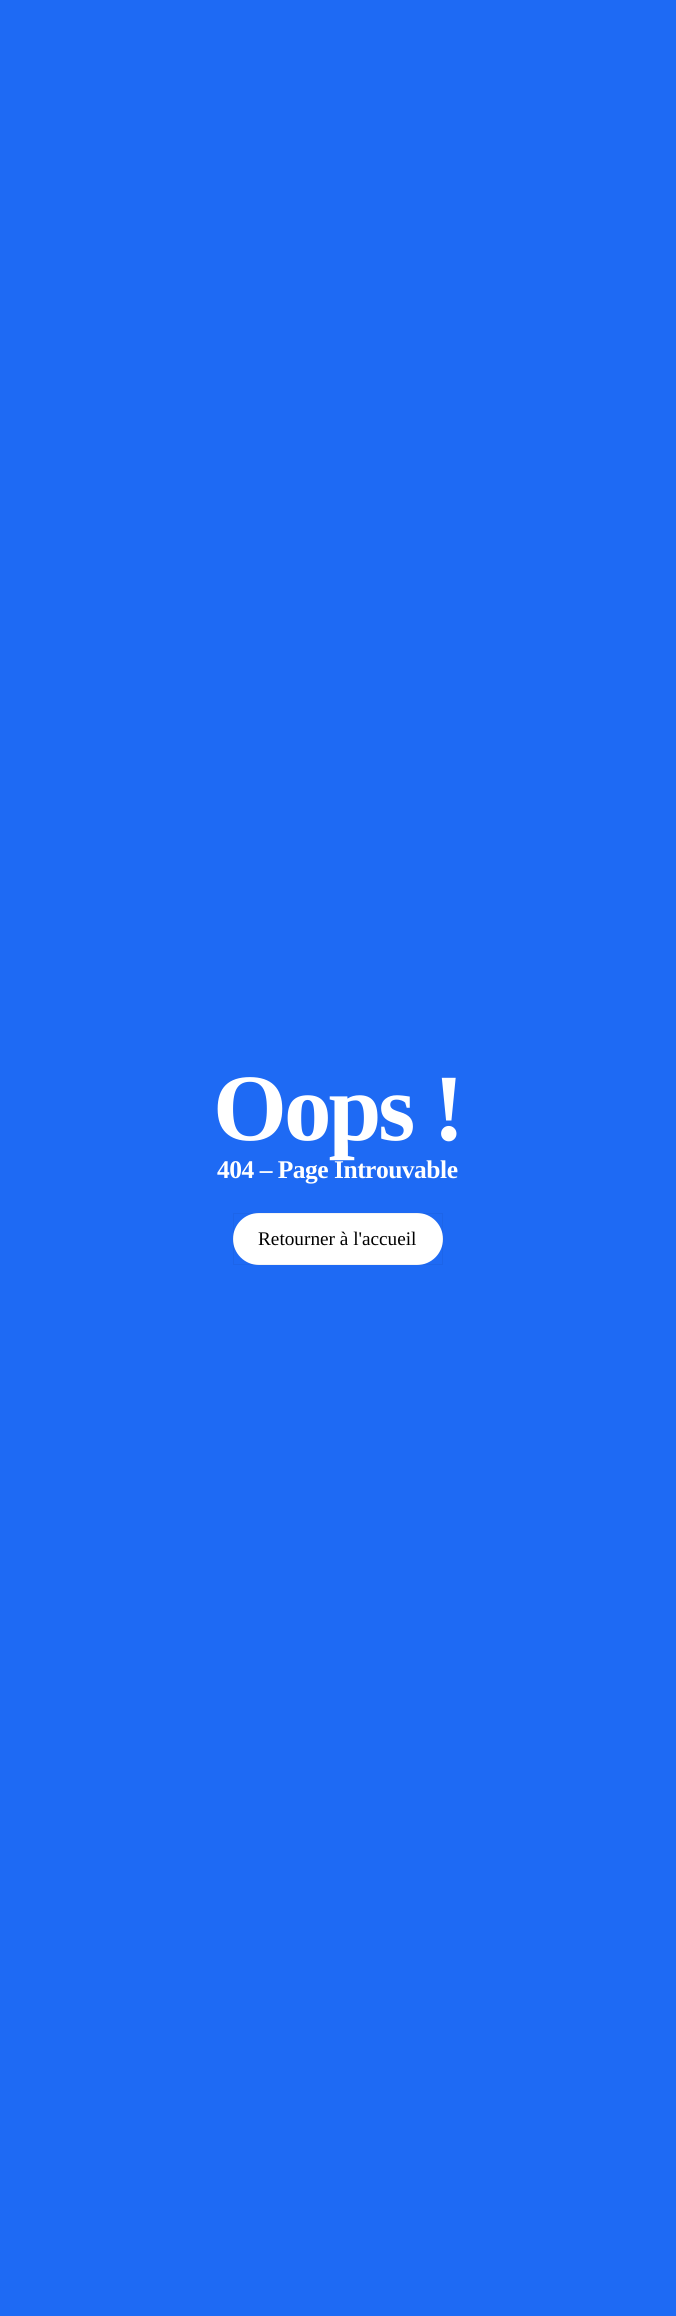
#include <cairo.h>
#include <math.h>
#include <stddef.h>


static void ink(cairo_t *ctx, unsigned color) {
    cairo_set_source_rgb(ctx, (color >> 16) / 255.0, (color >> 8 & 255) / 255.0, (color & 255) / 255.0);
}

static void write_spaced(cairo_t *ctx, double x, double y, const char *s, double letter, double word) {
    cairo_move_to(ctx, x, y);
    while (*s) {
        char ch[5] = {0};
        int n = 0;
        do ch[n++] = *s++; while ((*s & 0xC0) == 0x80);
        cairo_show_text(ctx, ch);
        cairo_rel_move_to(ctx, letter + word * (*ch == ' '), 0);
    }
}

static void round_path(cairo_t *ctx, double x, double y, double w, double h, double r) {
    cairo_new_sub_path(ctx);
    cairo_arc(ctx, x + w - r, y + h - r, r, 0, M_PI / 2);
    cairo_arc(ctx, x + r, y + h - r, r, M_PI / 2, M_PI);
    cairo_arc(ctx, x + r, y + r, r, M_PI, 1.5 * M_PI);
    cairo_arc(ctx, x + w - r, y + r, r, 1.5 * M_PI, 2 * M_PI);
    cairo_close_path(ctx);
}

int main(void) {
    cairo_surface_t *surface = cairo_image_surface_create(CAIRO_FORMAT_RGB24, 676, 2316);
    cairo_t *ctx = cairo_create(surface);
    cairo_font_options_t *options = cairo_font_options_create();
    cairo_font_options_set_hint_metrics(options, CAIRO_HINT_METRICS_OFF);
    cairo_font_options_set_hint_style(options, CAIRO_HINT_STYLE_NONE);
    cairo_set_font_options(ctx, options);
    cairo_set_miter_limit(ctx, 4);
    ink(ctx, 0x1E6AF4);
    cairo_paint(ctx);
    cairo_select_font_face(ctx, "Liberation Serif", CAIRO_FONT_SLANT_NORMAL, CAIRO_FONT_WEIGHT_BOLD);
    cairo_set_font_size(ctx, 95);
    ink(ctx, 0xFFFFFF);
    write_spaced(ctx, 213, 1140, "Oops !", -3, 0);
    cairo_set_font_size(ctx, 25.5);
    write_spaced(ctx, 217, 1178, "404 – Page Introuvable", -0.5, 0);
    round_path(ctx, 233, 1213, 210, 52, 26);
    cairo_fill(ctx);
    cairo_rectangle(ctx, 233.5, 1213.5, 209, 51);
    cairo_set_source_rgba(ctx, 0, 0, 0, 0.05);
    cairo_set_line_width(ctx, 1);
    cairo_stroke(ctx);
    cairo_select_font_face(ctx, "Liberation Serif", CAIRO_FONT_SLANT_NORMAL, CAIRO_FONT_WEIGHT_NORMAL);
    cairo_set_font_size(ctx, 19.25);
    ink(ctx, 0x000000);
    cairo_move_to(ctx, 258, 1245);
    cairo_show_text(ctx, "Retourner à l'accueil");
    cairo_surface_write_to_png(surface, "image.png");
    cairo_font_options_destroy(options);
    cairo_destroy(ctx);
    cairo_surface_destroy(surface);
    return 0;
}
